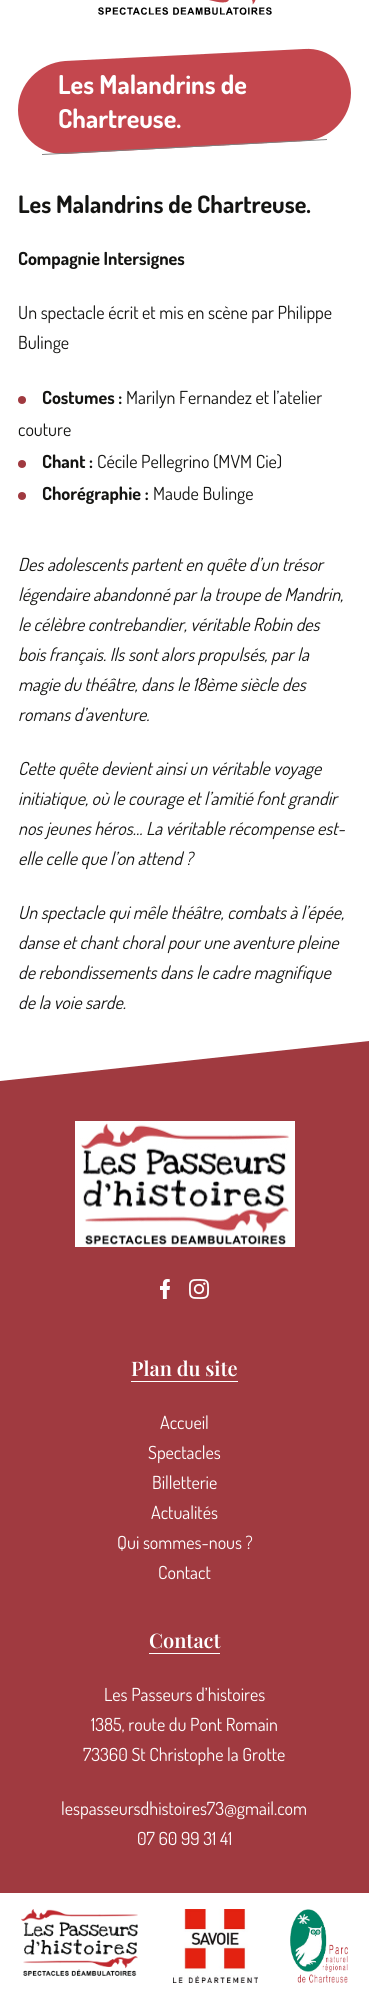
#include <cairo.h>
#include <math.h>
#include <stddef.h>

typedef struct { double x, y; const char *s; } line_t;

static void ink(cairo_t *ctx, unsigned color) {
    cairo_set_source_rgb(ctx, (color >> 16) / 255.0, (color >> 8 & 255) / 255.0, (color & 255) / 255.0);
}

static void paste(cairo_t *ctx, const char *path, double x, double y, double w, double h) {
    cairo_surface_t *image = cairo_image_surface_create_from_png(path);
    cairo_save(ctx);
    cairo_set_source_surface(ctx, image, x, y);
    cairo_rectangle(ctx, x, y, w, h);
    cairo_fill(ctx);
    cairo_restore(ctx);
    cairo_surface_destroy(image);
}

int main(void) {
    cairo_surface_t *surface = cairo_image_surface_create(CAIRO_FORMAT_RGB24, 369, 2006);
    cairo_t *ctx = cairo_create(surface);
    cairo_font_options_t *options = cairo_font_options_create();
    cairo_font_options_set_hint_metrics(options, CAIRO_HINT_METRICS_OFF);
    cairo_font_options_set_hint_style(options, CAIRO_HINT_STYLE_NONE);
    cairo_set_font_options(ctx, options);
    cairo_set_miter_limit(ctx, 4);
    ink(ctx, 0xFFFFFF);
    cairo_paint(ctx);
    paste(ctx, "media/1.png", 98, 0, 174, 15);
    ink(ctx, 0xC4474E);
    cairo_new_path(ctx);
    cairo_move_to(ctx, 65, 61);
    cairo_line_to(ctx, 304, 49);
    cairo_curve_to(ctx, 330, 47, 351, 67, 351, 93);
    cairo_curve_to(ctx, 351, 118, 330, 140, 304, 141);
    cairo_line_to(ctx, 65, 154);
    cairo_curve_to(ctx, 39, 155, 18, 136, 18, 110);
    cairo_curve_to(ctx, 18, 84, 39, 63, 65, 61);
    cairo_close_path(ctx);
    cairo_fill(ctx);
    ink(ctx, 0x808080);
    cairo_new_path(ctx);
    cairo_move_to(ctx, 42, 154);
    cairo_line_to(ctx, 327, 139);
    cairo_line_to(ctx, 327, 140);
    cairo_line_to(ctx, 42, 155);
    cairo_close_path(ctx);
    cairo_fill(ctx);
    cairo_select_font_face(ctx, "Dosis", CAIRO_FONT_SLANT_NORMAL, CAIRO_FONT_WEIGHT_BOLD);
    cairo_set_font_size(ctx, 26);
    ink(ctx, 0xFFFFFF);
    cairo_move_to(ctx, 58, 94);
    cairo_show_text(ctx, "Les Malandrins de");
    cairo_move_to(ctx, 58, 128);
    cairo_show_text(ctx, "Chartreuse.");
    cairo_set_font_size(ctx, 24);
    ink(ctx, 0x141412);
    cairo_move_to(ctx, 18, 213);
    cairo_show_text(ctx, "Les Malandrins de Chartreuse.");
    cairo_set_font_size(ctx, 18);
    cairo_move_to(ctx, 18, 265);
    cairo_show_text(ctx, "Compagnie Intersignes");
    cairo_select_font_face(ctx, "Dosis", CAIRO_FONT_SLANT_NORMAL, CAIRO_FONT_WEIGHT_NORMAL);
    cairo_move_to(ctx, 18, 319);
    cairo_show_text(ctx, "Un spectacle écrit et mis en scène par Philippe");
    cairo_move_to(ctx, 18, 349);
    cairo_show_text(ctx, "Bulinge");
    ink(ctx, 0xA03A40);
    cairo_new_path(ctx);
    cairo_arc(ctx, 22, 400, 4, 0, 2 * M_PI);
    cairo_fill(ctx);
    cairo_select_font_face(ctx, "Dosis", CAIRO_FONT_SLANT_NORMAL, CAIRO_FONT_WEIGHT_BOLD);
    ink(ctx, 0x141412);
    cairo_move_to(ctx, 42, 404);
    cairo_show_text(ctx, "Costumes :");
    cairo_select_font_face(ctx, "Dosis", CAIRO_FONT_SLANT_NORMAL, CAIRO_FONT_WEIGHT_NORMAL);
    cairo_move_to(ctx, 126, 404);
    cairo_show_text(ctx, "Marilyn Fernandez et l’atelier");
    cairo_move_to(ctx, 18, 436);
    cairo_show_text(ctx, "couture");
    ink(ctx, 0xA03A40);
    cairo_new_path(ctx);
    cairo_arc(ctx, 22, 464, 4, 0, 2 * M_PI);
    cairo_fill(ctx);
    cairo_select_font_face(ctx, "Dosis", CAIRO_FONT_SLANT_NORMAL, CAIRO_FONT_WEIGHT_BOLD);
    ink(ctx, 0x141412);
    cairo_move_to(ctx, 42, 468);
    cairo_show_text(ctx, "Chant :");
    cairo_select_font_face(ctx, "Dosis", CAIRO_FONT_SLANT_NORMAL, CAIRO_FONT_WEIGHT_NORMAL);
    cairo_move_to(ctx, 97, 468);
    cairo_show_text(ctx, "Cécile Pellegrino (MVM Cie)");
    ink(ctx, 0xA03A40);
    cairo_new_path(ctx);
    cairo_arc(ctx, 22, 496, 4, 0, 2 * M_PI);
    cairo_fill(ctx);
    cairo_select_font_face(ctx, "Dosis", CAIRO_FONT_SLANT_NORMAL, CAIRO_FONT_WEIGHT_BOLD);
    ink(ctx, 0x141412);
    cairo_move_to(ctx, 42, 500);
    cairo_show_text(ctx, "Chorégraphie :");
    cairo_select_font_face(ctx, "Dosis", CAIRO_FONT_SLANT_NORMAL, CAIRO_FONT_WEIGHT_NORMAL);
    cairo_move_to(ctx, 153, 500);
    cairo_show_text(ctx, "Maude Bulinge");
    cairo_select_font_face(ctx, "Dosis", CAIRO_FONT_SLANT_ITALIC, CAIRO_FONT_WEIGHT_NORMAL);
    {
        static const line_t items[] = {
            {18, 571, "Des adolescents partent en quête d’un trésor"},
            {18, 601, "légendaire abandonné par la troupe de Mandrin,"},
            {18, 631, "le célèbre contrebandier, véritable Robin des"},
            {18, 661, "bois français. Ils sont alors propulsés, par la"},
            {18, 691, "magie du théâtre, dans le 18ème siècle des"},
            {18, 721, "romans d’aventure."},
            {18, 775, "Cette quête devient ainsi un véritable voyage"},
            {18, 805, "initiatique, où le courage et l’amitié font grandir"},
            {18, 835, "nos jeunes héros… La véritable récompense est-"},
            {18, 865, "elle celle que l’on attend ?"},
            {18, 919, "Un spectacle qui mêle théâtre, combats à l’épée,"},
            {18, 949, "danse et chant choral pour une aventure pleine"},
            {18, 979, "de rebondissements dans le cadre magnifique"},
            {18, 1009, "de la voie sarde."},
        };
        for (size_t i = 0; i < sizeof items / sizeof *items; i++) {
            cairo_move_to(ctx, items[i].x, items[i].y);
            cairo_show_text(ctx, items[i].s);
        }
    }
    ink(ctx, 0xA03A40);
    cairo_rectangle(ctx, 0, 1081, 369, 812);
    cairo_fill(ctx);
    cairo_new_path(ctx);
    cairo_move_to(ctx, 369, 1081);
    cairo_line_to(ctx, 0, 1081);
    cairo_line_to(ctx, 369, 1041);
    cairo_close_path(ctx);
    cairo_fill(ctx);
    paste(ctx, "media/2.png", 75, 1121, 220, 126);
    paste(ctx, "media/3.png", 160, 1279, 10, 20);
    paste(ctx, "media/4.png", 189, 1279, 20, 20);
    ink(ctx, 0xFFFFFF);
    cairo_rectangle(ctx, 131, 1381, 107, 1);
    cairo_fill(ctx);
    cairo_select_font_face(ctx, "Playfair Display SemiBold", CAIRO_FONT_SLANT_NORMAL, CAIRO_FONT_WEIGHT_NORMAL);
    cairo_set_font_size(ctx, 20);
    cairo_move_to(ctx, 131, 1376);
    cairo_show_text(ctx, "Plan du site");
    cairo_select_font_face(ctx, "Dosis", CAIRO_FONT_SLANT_NORMAL, CAIRO_FONT_WEIGHT_NORMAL);
    cairo_set_font_size(ctx, 18);
    {
        static const line_t items[] = {
            {160, 1429, "Accueil"},
            {148, 1459, "Spectacles"},
            {152, 1489, "Billetterie"},
            {151, 1519, "Actualités"},
            {117, 1549, "Qui sommes-nous ?"},
            {158, 1579, "Contact"},
        };
        for (size_t i = 0; i < sizeof items / sizeof *items; i++) {
            cairo_move_to(ctx, items[i].x, items[i].y);
            cairo_show_text(ctx, items[i].s);
        }
    }
    cairo_rectangle(ctx, 149, 1653, 71, 1);
    cairo_fill(ctx);
    cairo_select_font_face(ctx, "Playfair Display SemiBold", CAIRO_FONT_SLANT_NORMAL, CAIRO_FONT_WEIGHT_NORMAL);
    cairo_set_font_size(ctx, 20);
    cairo_move_to(ctx, 149, 1648);
    cairo_show_text(ctx, "Contact");
    cairo_select_font_face(ctx, "Dosis", CAIRO_FONT_SLANT_NORMAL, CAIRO_FONT_WEIGHT_NORMAL);
    cairo_set_font_size(ctx, 18);
    {
        static const line_t items[] = {
            {104, 1701, "Les Passeurs d’histoires"},
            {91, 1731, "1385, route du Pont Romain"},
            {83, 1761, "73360 St Christophe la Grotte"},
            {61, 1815, "lespasseursdhistoires73@gmail.com"},
            {137, 1845, "07 60 99 31 41"},
        };
        for (size_t i = 0; i < sizeof items / sizeof *items; i++) {
            cairo_move_to(ctx, items[i].x, items[i].y);
            cairo_show_text(ctx, items[i].s);
        }
    }
    paste(ctx, "media/5.png", 21, 1909, 117, 67);
    paste(ctx, "media/6.png", 173, 1909, 85, 74);
    paste(ctx, "media/7.png", 290, 1909, 58, 74);
    cairo_surface_write_to_png(surface, "image.png");
    cairo_font_options_destroy(options);
    cairo_destroy(ctx);
    cairo_surface_destroy(surface);
    return 0;
}
